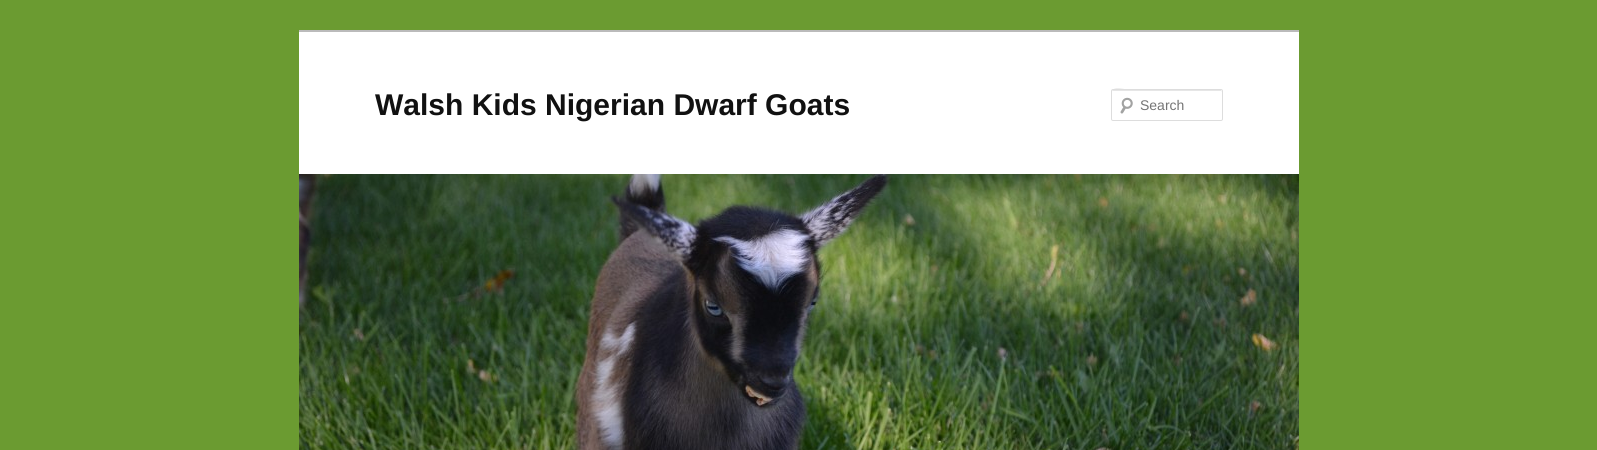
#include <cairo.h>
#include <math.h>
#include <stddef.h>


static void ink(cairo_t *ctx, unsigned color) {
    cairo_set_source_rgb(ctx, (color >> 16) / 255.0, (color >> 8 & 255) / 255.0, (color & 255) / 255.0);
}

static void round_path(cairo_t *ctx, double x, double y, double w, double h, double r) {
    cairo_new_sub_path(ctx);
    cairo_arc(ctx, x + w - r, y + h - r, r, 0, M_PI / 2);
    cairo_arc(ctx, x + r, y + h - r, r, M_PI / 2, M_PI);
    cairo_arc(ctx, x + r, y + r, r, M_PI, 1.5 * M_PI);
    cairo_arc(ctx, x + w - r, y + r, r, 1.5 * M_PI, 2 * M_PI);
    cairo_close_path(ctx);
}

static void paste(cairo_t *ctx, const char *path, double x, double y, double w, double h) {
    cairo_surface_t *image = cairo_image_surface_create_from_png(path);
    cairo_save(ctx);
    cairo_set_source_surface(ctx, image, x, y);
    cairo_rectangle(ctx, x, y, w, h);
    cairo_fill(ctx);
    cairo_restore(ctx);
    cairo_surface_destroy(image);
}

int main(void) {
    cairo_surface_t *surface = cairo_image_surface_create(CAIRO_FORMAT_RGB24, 1597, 450);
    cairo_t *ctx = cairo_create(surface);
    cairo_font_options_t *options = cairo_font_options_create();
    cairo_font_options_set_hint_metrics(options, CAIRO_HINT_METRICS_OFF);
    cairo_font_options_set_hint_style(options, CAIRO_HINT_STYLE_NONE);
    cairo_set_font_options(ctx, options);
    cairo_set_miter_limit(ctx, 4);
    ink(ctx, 0x6B9B31);
    cairo_paint(ctx);
    ink(ctx, 0xFFFFFF);
    cairo_rectangle(ctx, 299, 32, 1000, 142);
    cairo_fill(ctx);
    ink(ctx, 0xBBBBBB);
    cairo_rectangle(ctx, 299, 30, 1000, 2);
    cairo_fill(ctx);
    cairo_select_font_face(ctx, "Liberation Sans", CAIRO_FONT_SLANT_NORMAL, CAIRO_FONT_WEIGHT_BOLD);
    cairo_set_font_size(ctx, 30);
    ink(ctx, 0x111111);
    cairo_move_to(ctx, 375, 115);
    cairo_show_text(ctx, "Walsh Kids Nigerian Dwarf Goats");
    paste(ctx, "media/1.png", 1120, 97, 13, 17);
    ink(ctx, 0xE6E6E6);
    cairo_new_path(ctx);
    cairo_move_to(ctx, 1113, 91);
    cairo_line_to(ctx, 1222, 91);
    cairo_line_to(ctx, 1222, 92);
    cairo_line_to(ctx, 1221, 90);
    cairo_line_to(ctx, 1131, 90);
    cairo_curve_to(ctx, 1127, 90, 1112, 85, 1112, 92);
    cairo_curve_to(ctx, 1112, 91, 1112, 91, 1113, 91);
    cairo_close_path(ctx);
    cairo_fill(ctx);
    round_path(ctx, 1111.5, 89.5, 111, 31, 1.5);
    ink(ctx, 0xDDDDDD);
    cairo_set_line_width(ctx, 1);
    cairo_stroke(ctx);
    cairo_select_font_face(ctx, "Liberation Sans", CAIRO_FONT_SLANT_NORMAL, CAIRO_FONT_WEIGHT_NORMAL);
    cairo_set_font_size(ctx, 14);
    ink(ctx, 0x757575);
    cairo_move_to(ctx, 1140, 110);
    cairo_show_text(ctx, "Search");
    paste(ctx, "media/2.png", 299, 174, 1000, 276);
    cairo_surface_write_to_png(surface, "image.png");
    cairo_font_options_destroy(options);
    cairo_destroy(ctx);
    cairo_surface_destroy(surface);
    return 0;
}
